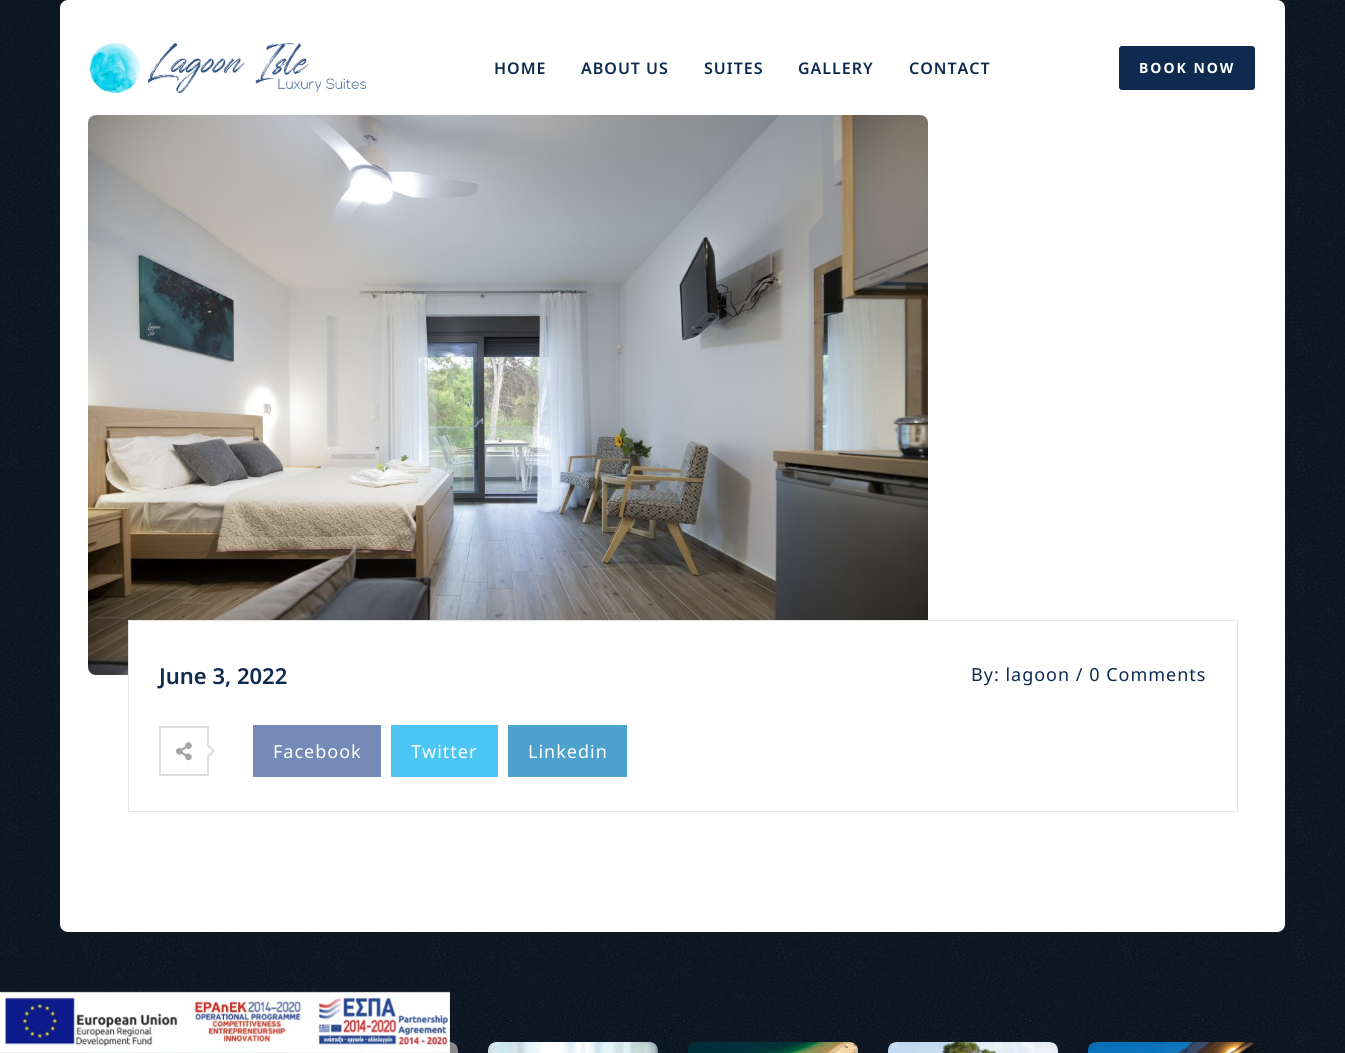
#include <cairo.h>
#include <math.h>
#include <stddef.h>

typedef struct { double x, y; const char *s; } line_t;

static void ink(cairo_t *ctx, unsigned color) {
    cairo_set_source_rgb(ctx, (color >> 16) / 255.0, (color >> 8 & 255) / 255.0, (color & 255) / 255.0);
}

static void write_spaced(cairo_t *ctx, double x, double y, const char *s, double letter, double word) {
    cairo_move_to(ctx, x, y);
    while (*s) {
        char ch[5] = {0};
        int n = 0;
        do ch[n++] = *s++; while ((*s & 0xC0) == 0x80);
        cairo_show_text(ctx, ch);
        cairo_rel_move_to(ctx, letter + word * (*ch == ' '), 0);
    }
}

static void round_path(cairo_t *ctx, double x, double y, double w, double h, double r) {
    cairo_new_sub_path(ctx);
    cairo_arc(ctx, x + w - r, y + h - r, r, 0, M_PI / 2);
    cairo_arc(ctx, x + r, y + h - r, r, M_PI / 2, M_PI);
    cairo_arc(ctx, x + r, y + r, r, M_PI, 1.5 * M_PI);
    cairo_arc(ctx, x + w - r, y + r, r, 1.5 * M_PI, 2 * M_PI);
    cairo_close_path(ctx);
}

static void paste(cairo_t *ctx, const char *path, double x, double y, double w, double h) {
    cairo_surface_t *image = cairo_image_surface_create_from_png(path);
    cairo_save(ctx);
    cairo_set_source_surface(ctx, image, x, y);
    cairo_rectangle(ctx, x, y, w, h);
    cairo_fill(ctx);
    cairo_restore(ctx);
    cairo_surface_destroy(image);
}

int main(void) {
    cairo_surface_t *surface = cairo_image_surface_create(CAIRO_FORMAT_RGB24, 1345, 1053);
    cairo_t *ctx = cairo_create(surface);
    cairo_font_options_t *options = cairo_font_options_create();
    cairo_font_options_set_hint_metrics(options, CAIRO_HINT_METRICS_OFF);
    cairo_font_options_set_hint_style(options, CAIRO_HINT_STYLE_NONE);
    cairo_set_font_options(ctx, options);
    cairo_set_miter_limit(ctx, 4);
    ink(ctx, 0xFFFFFF);
    cairo_paint(ctx);
    paste(ctx, "media/1.png", 0, 0, 1345, 1053);
    ink(ctx, 0xFFFFFF);
    round_path(ctx, 60, 0, 1225, 932, 8);
    cairo_fill(ctx);
    paste(ctx, "media/2.png", 90, 43, 276, 50);
    cairo_select_font_face(ctx, "Noto Sans SemiBold", CAIRO_FONT_SLANT_NORMAL, CAIRO_FONT_WEIGHT_NORMAL);
    cairo_set_font_size(ctx, 16);
    ink(ctx, 0x0E2A4E);
    {
        static const line_t items[] = {
            {494, 74, "HOME"},
            {581, 74, "ABOUT US"},
            {704, 74, "SUITES"},
            {798, 74, "GALLERY"},
            {909, 74, "CONTACT"},
        };
        for (size_t i = 0; i < sizeof items / sizeof *items; i++) {
            write_spaced(ctx, items[i].x, items[i].y, items[i].s, 1, 0);
        }
    }
    round_path(ctx, 1119, 46, 136, 44, 3);
    cairo_fill(ctx);
    cairo_select_font_face(ctx, "Noto Sans", CAIRO_FONT_SLANT_NORMAL, CAIRO_FONT_WEIGHT_BOLD);
    cairo_set_font_size(ctx, 14);
    ink(ctx, 0xFFFFFF);
    write_spaced(ctx, 1139, 73, "BOOK NOW", 2, 0);
    paste(ctx, "media/3.png", 88, 115, 840, 560);
    cairo_rectangle(ctx, 129, 621, 799, 54);
    cairo_fill(ctx);
    cairo_rectangle(ctx, 128.5, 620.5, 1109, 191);
    ink(ctx, 0xE4E4E4);
    cairo_set_line_width(ctx, 1);
    cairo_stroke(ctx);
    cairo_select_font_face(ctx, "Noto Sans SemiBold", CAIRO_FONT_SLANT_NORMAL, CAIRO_FONT_WEIGHT_NORMAL);
    cairo_set_font_size(ctx, 22);
    ink(ctx, 0x0E2A4E);
    cairo_move_to(ctx, 159, 684);
    cairo_show_text(ctx, "June 3, 2022");
    cairo_select_font_face(ctx, "Noto Sans", CAIRO_FONT_SLANT_NORMAL, CAIRO_FONT_WEIGHT_NORMAL);
    cairo_set_font_size(ctx, 18);
    write_spaced(ctx, 971, 681, "By: lagoon / 0 Comments", 1, 0);
    cairo_rectangle(ctx, 160, 727, 48, 48);
    ink(ctx, 0xDDDDDD);
    cairo_set_line_width(ctx, 2);
    cairo_stroke(ctx);
    paste(ctx, "media/4.png", 176, 742, 16, 19);
    ink(ctx, 0xFFFFFF);
    cairo_new_path(ctx);
    cairo_move_to(ctx, 206.5, 742.5);
    cairo_line_to(ctx, 215, 751);
    cairo_line_to(ctx, 206.5, 759.5);
    cairo_line_to(ctx, 198, 751);
    cairo_close_path(ctx);
    cairo_fill(ctx);
    ink(ctx, 0xDDDDDD);
    cairo_new_path(ctx);
    cairo_move_to(ctx, 206.5, 742.5);
    cairo_line_to(ctx, 215, 751);
    cairo_line_to(ctx, 212, 751);
    cairo_line_to(ctx, 206.5, 745.5);
    cairo_close_path(ctx);
    cairo_move_to(ctx, 215, 751);
    cairo_line_to(ctx, 206.5, 759.5);
    cairo_line_to(ctx, 206.5, 756.5);
    cairo_line_to(ctx, 212, 751);
    cairo_close_path(ctx);
    cairo_fill(ctx);
    ink(ctx, 0xFFFFFF);
    cairo_new_path(ctx);
    cairo_move_to(ctx, 206.5, 759.5);
    cairo_line_to(ctx, 198, 751);
    cairo_line_to(ctx, 201, 751);
    cairo_line_to(ctx, 206.5, 756.5);
    cairo_close_path(ctx);
    cairo_move_to(ctx, 198, 751);
    cairo_line_to(ctx, 206.5, 742.5);
    cairo_line_to(ctx, 206.5, 745.5);
    cairo_line_to(ctx, 201, 751);
    cairo_close_path(ctx);
    cairo_fill(ctx);
    ink(ctx, 0x758AB7);
    cairo_rectangle(ctx, 253, 725, 128, 52);
    cairo_fill(ctx);
    ink(ctx, 0xFFFFFF);
    write_spaced(ctx, 273, 758, "Facebook", 1, 0);
    ink(ctx, 0x4CC5F3);
    cairo_rectangle(ctx, 391, 725, 107, 52);
    cairo_fill(ctx);
    ink(ctx, 0xFFFFFF);
    write_spaced(ctx, 411, 758, "Twitter", 1, 0);
    ink(ctx, 0x4CA2CC);
    cairo_rectangle(ctx, 508, 725, 119, 52);
    cairo_fill(ctx);
    ink(ctx, 0xFFFFFF);
    write_spaced(ctx, 528, 758, "Linkedin", 1, 0);
    paste(ctx, "media/5.png", 88, 1052, 170, 1);
    paste(ctx, "media/6.png", 288, 1042, 170, 11);
    paste(ctx, "media/7.png", 488, 1042, 170, 11);
    paste(ctx, "media/8.png", 688, 1042, 170, 11);
    paste(ctx, "media/9.png", 888, 1042, 170, 11);
    paste(ctx, "media/10.png", 1088, 1042, 170, 11);
    paste(ctx, "media/11.png", 0, 991, 450, 62);
    cairo_surface_write_to_png(surface, "image.png");
    cairo_font_options_destroy(options);
    cairo_destroy(ctx);
    cairo_surface_destroy(surface);
    return 0;
}
